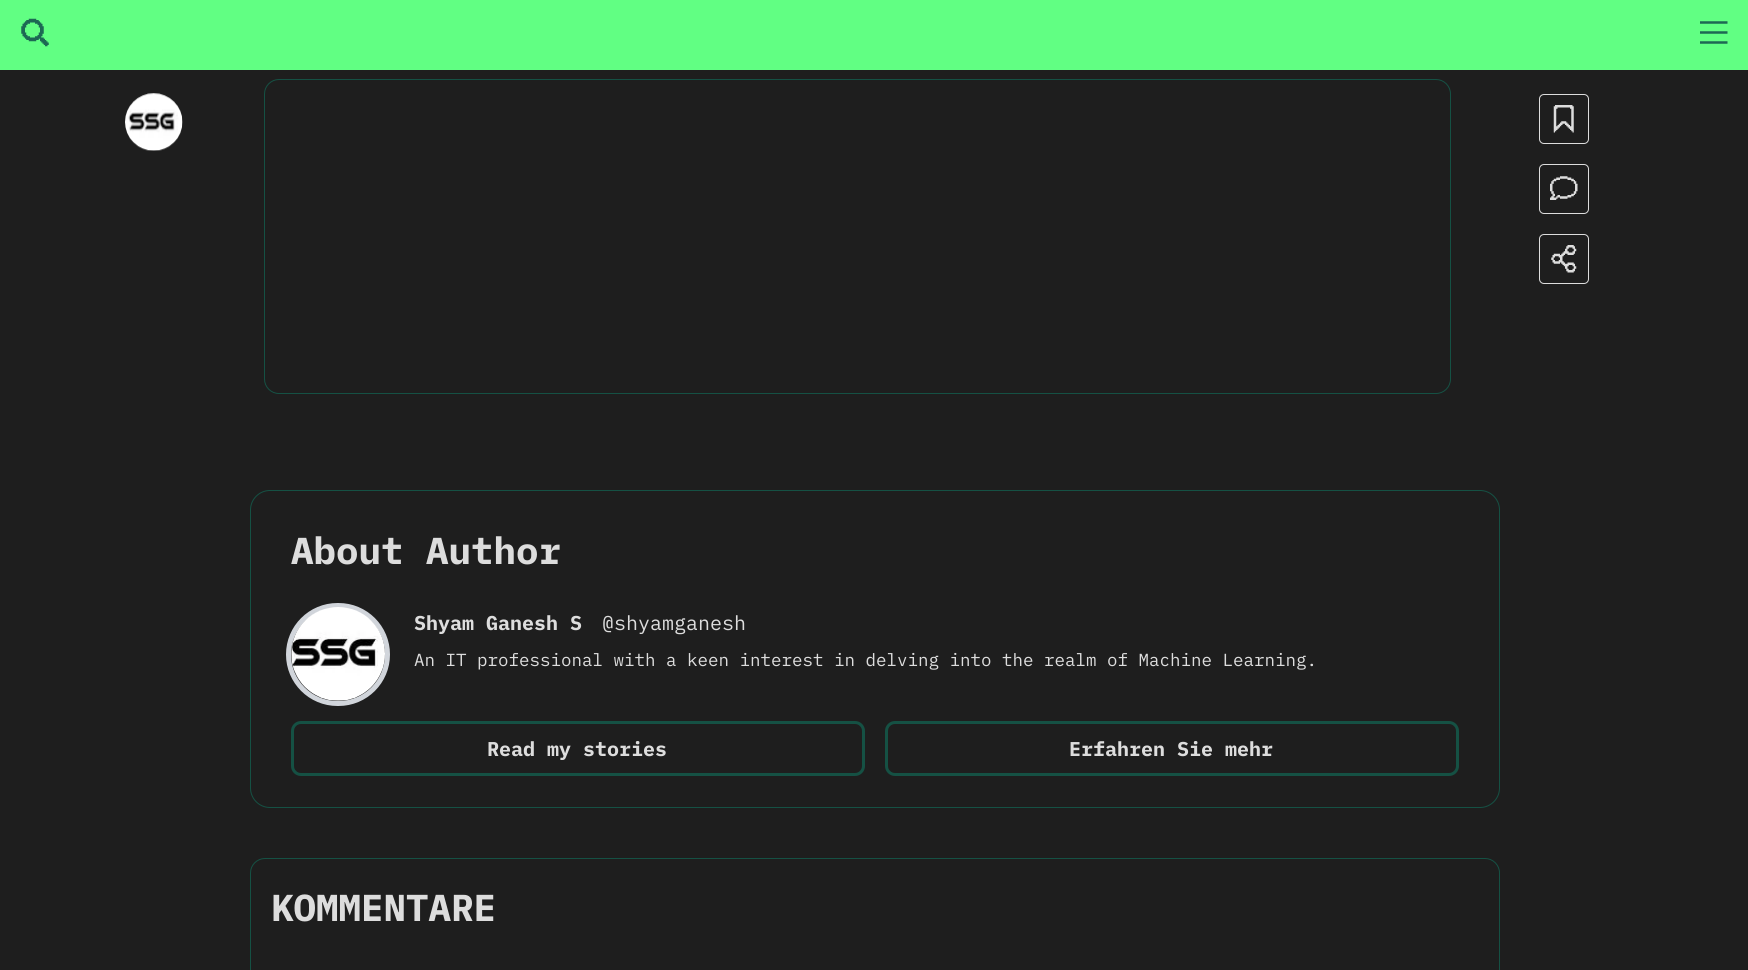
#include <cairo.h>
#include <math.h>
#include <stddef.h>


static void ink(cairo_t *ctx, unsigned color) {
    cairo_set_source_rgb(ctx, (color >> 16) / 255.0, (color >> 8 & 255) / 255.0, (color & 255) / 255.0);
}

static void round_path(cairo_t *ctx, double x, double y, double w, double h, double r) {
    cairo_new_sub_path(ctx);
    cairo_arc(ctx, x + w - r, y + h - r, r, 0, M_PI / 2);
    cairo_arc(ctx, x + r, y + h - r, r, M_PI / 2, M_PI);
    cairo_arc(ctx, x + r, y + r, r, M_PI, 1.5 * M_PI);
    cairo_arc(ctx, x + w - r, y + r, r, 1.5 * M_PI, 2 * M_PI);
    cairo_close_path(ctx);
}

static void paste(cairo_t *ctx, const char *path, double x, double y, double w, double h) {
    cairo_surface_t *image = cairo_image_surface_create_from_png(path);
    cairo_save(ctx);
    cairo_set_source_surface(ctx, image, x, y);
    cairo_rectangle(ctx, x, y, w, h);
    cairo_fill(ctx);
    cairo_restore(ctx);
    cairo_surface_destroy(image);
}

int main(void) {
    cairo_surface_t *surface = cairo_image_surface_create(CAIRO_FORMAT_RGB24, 1748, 970);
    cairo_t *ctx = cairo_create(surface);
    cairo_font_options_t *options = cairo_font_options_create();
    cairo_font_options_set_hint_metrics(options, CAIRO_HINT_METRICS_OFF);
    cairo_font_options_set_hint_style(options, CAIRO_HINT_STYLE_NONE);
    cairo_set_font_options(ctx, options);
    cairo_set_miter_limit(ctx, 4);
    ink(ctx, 0x1E1E1E);
    cairo_paint(ctx);
    ink(ctx, 0x61FF83);
    cairo_rectangle(ctx, 0, 0, 1748, 70);
    cairo_fill(ctx);
    paste(ctx, "media/1.png", 21, 18, 28, 29);
    paste(ctx, "media/2.png", 1700, 21, 28, 23);
    paste(ctx, "media/3.png", 125, 93, 58, 58);
    round_path(ctx, 264.5, 79.5, 1186, 314, 14.5);
    ink(ctx, 0x155144);
    cairo_set_line_width(ctx, 1);
    cairo_stroke(ctx);
    round_path(ctx, 1539.5, 94.5, 49, 49, 4.5);
    ink(ctx, 0xDDDDDD);
    cairo_stroke(ctx);
    paste(ctx, "media/4.png", 1553, 105, 21, 28);
    round_path(ctx, 1539.5, 164.5, 49, 49, 4.5);
    cairo_stroke(ctx);
    paste(ctx, "media/5.png", 1550, 176, 28, 24);
    round_path(ctx, 1539.5, 234.5, 49, 49, 4.5);
    cairo_stroke(ctx);
    paste(ctx, "media/6.png", 1551, 245, 26, 28);
    round_path(ctx, 250.5, 490.5, 1249, 317, 19.5);
    ink(ctx, 0x155144);
    cairo_stroke(ctx);
    cairo_select_font_face(ctx, "IBM Plex Mono", CAIRO_FONT_SLANT_NORMAL, CAIRO_FONT_WEIGHT_BOLD);
    cairo_set_font_size(ctx, 37.5);
    ink(ctx, 0xDDDDDD);
    cairo_move_to(ctx, 291, 564);
    cairo_show_text(ctx, "About Author");
    round_path(ctx, 288.5, 605.5, 99, 98, 49);
    ink(ctx, 0xD1D5DB);
    cairo_set_line_width(ctx, 5);
    cairo_stroke(ctx);
    paste(ctx, "media/7.png", 291, 607, 94, 94);
    cairo_set_font_size(ctx, 20);
    ink(ctx, 0xDDDDDD);
    cairo_move_to(ctx, 414, 630);
    cairo_show_text(ctx, "Shyam Ganesh S");
    cairo_select_font_face(ctx, "IBM Plex Mono", CAIRO_FONT_SLANT_NORMAL, CAIRO_FONT_WEIGHT_NORMAL);
    cairo_move_to(ctx, 602, 630);
    cairo_show_text(ctx, "@shyamganesh");
    cairo_set_font_size(ctx, 17.5);
    cairo_move_to(ctx, 414, 666);
    cairo_show_text(ctx, "An IT professional with a keen interest in delving into the realm of Machine Learning.");
    round_path(ctx, 292.5, 722.5, 571, 52, 8.5);
    ink(ctx, 0x155144);
    cairo_set_line_width(ctx, 3);
    cairo_stroke(ctx);
    cairo_select_font_face(ctx, "IBM Plex Mono", CAIRO_FONT_SLANT_NORMAL, CAIRO_FONT_WEIGHT_BOLD);
    cairo_set_font_size(ctx, 20);
    ink(ctx, 0xDDDDDD);
    cairo_move_to(ctx, 487, 756);
    cairo_show_text(ctx, "Read my stories");
    round_path(ctx, 886.5, 722.5, 571, 52, 8.5);
    ink(ctx, 0x155144);
    cairo_stroke(ctx);
    ink(ctx, 0xDDDDDD);
    cairo_move_to(ctx, 1069, 756);
    cairo_show_text(ctx, "Erfahren Sie mehr");
    round_path(ctx, 250.5, 858.5, 1249, 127, 14.5);
    ink(ctx, 0x155144);
    cairo_set_line_width(ctx, 1);
    cairo_stroke(ctx);
    cairo_set_font_size(ctx, 37.5);
    ink(ctx, 0xDDDDDD);
    cairo_move_to(ctx, 271, 921);
    cairo_show_text(ctx, "KOMMENTARE");
    cairo_surface_write_to_png(surface, "image.png");
    cairo_font_options_destroy(options);
    cairo_destroy(ctx);
    cairo_surface_destroy(surface);
    return 0;
}
